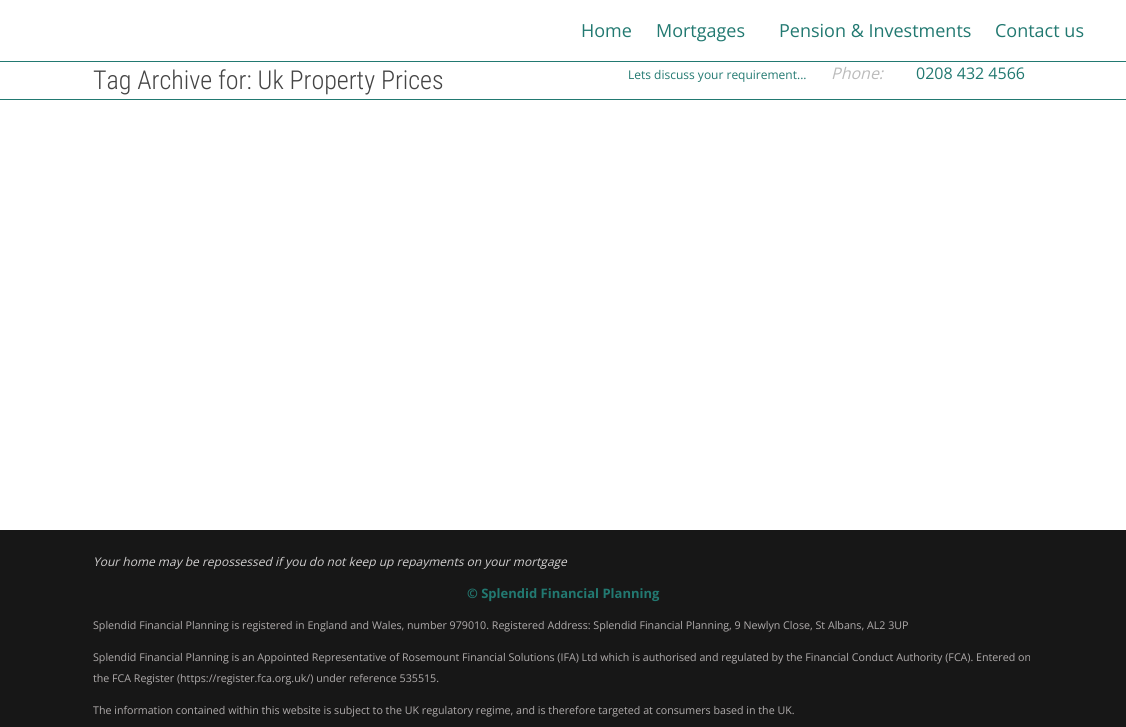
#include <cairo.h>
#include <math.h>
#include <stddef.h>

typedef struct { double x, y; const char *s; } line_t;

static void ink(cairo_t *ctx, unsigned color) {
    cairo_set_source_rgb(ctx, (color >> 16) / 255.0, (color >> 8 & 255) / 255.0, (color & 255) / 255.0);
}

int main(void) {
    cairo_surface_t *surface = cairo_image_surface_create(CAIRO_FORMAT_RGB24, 1126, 727);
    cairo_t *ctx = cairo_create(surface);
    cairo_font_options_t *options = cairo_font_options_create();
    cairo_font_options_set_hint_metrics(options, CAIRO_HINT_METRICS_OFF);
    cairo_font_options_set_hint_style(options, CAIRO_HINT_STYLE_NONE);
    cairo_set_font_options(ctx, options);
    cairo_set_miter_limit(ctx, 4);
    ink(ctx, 0xFFFFFF);
    cairo_paint(ctx);
    ink(ctx, 0x227971);
    cairo_rectangle(ctx, 0, 61, 1126, 1);
    cairo_fill(ctx);
    cairo_select_font_face(ctx, "Open Sans", CAIRO_FONT_SLANT_NORMAL, CAIRO_FONT_WEIGHT_NORMAL);
    cairo_set_font_size(ctx, 18);
    {
        static const line_t items[] = {
            {581, 37, "Home"},
            {656, 37, "Mortgages"},
            {779, 37, "Pension & Investments"},
            {995, 37, "Contact us"},
        };
        for (size_t i = 0; i < sizeof items / sizeof *items; i++) {
            cairo_move_to(ctx, items[i].x, items[i].y);
            cairo_show_text(ctx, items[i].s);
        }
    }
    cairo_rectangle(ctx, 0, 99, 1126, 1);
    cairo_fill(ctx);
    cairo_select_font_face(ctx, "Roboto Condensed Light", CAIRO_FONT_SLANT_NORMAL, CAIRO_FONT_WEIGHT_NORMAL);
    cairo_set_font_size(ctx, 26);
    ink(ctx, 0x444444);
    cairo_move_to(ctx, 93, 89);
    cairo_show_text(ctx, "Tag Archive for: Uk Property Prices");
    cairo_select_font_face(ctx, "Open Sans", CAIRO_FONT_SLANT_NORMAL, CAIRO_FONT_WEIGHT_NORMAL);
    cairo_set_font_size(ctx, 12);
    ink(ctx, 0x227971);
    cairo_move_to(ctx, 628, 79);
    cairo_show_text(ctx, "Lets discuss your requirement...");
    cairo_select_font_face(ctx, "Open Sans", CAIRO_FONT_SLANT_ITALIC, CAIRO_FONT_WEIGHT_NORMAL);
    cairo_set_font_size(ctx, 16);
    ink(ctx, 0xBBBBBB);
    cairo_move_to(ctx, 831, 79);
    cairo_show_text(ctx, "Phone:");
    cairo_select_font_face(ctx, "Open Sans", CAIRO_FONT_SLANT_NORMAL, CAIRO_FONT_WEIGHT_NORMAL);
    ink(ctx, 0x227971);
    cairo_move_to(ctx, 916, 79);
    cairo_show_text(ctx, "0208 432 4566");
    ink(ctx, 0x171717);
    cairo_rectangle(ctx, 0, 530, 1126, 197);
    cairo_fill(ctx);
    cairo_select_font_face(ctx, "Open Sans", CAIRO_FONT_SLANT_ITALIC, CAIRO_FONT_WEIGHT_NORMAL);
    cairo_set_font_size(ctx, 12);
    ink(ctx, 0xD0CECE);
    cairo_move_to(ctx, 93, 566);
    cairo_show_text(ctx, "Your home may be repossessed if you do not keep up repayments on your mortgage");
    cairo_select_font_face(ctx, "Open Sans", CAIRO_FONT_SLANT_NORMAL, CAIRO_FONT_WEIGHT_BOLD);
    cairo_set_font_size(ctx, 13);
    ink(ctx, 0x227971);
    cairo_move_to(ctx, 467, 598);
    cairo_show_text(ctx, "© Splendid Financial Planning");
    cairo_select_font_face(ctx, "Open Sans", CAIRO_FONT_SLANT_NORMAL, CAIRO_FONT_WEIGHT_NORMAL);
    cairo_set_font_size(ctx, 10.67);
    ink(ctx, 0xAFABAB);
    {
        static const line_t items[] = {
            {93, 629, "Splendid Financial Planning is registered in England and Wales, number 979010. Registered Address: Splendid Financial Planning, 9 Newlyn Close, St Albans, AL2 3UP"},
            {93, 661, "Splendid Financial Planning is an Appointed Representative of Rosemount Financial Solutions (IFA) Ltd which is authorised and regulated by the Financial Conduct Authority (FCA). Entered on"},
            {93, 682, "the FCA Register (https://register.fca.org.uk/) under reference 535515."},
            {93, 714, "The information contained within this website is subject to the UK regulatory regime, and is therefore targeted at consumers based in the UK."},
        };
        for (size_t i = 0; i < sizeof items / sizeof *items; i++) {
            cairo_move_to(ctx, items[i].x, items[i].y);
            cairo_show_text(ctx, items[i].s);
        }
    }
    cairo_surface_write_to_png(surface, "image.png");
    cairo_font_options_destroy(options);
    cairo_destroy(ctx);
    cairo_surface_destroy(surface);
    return 0;
}
